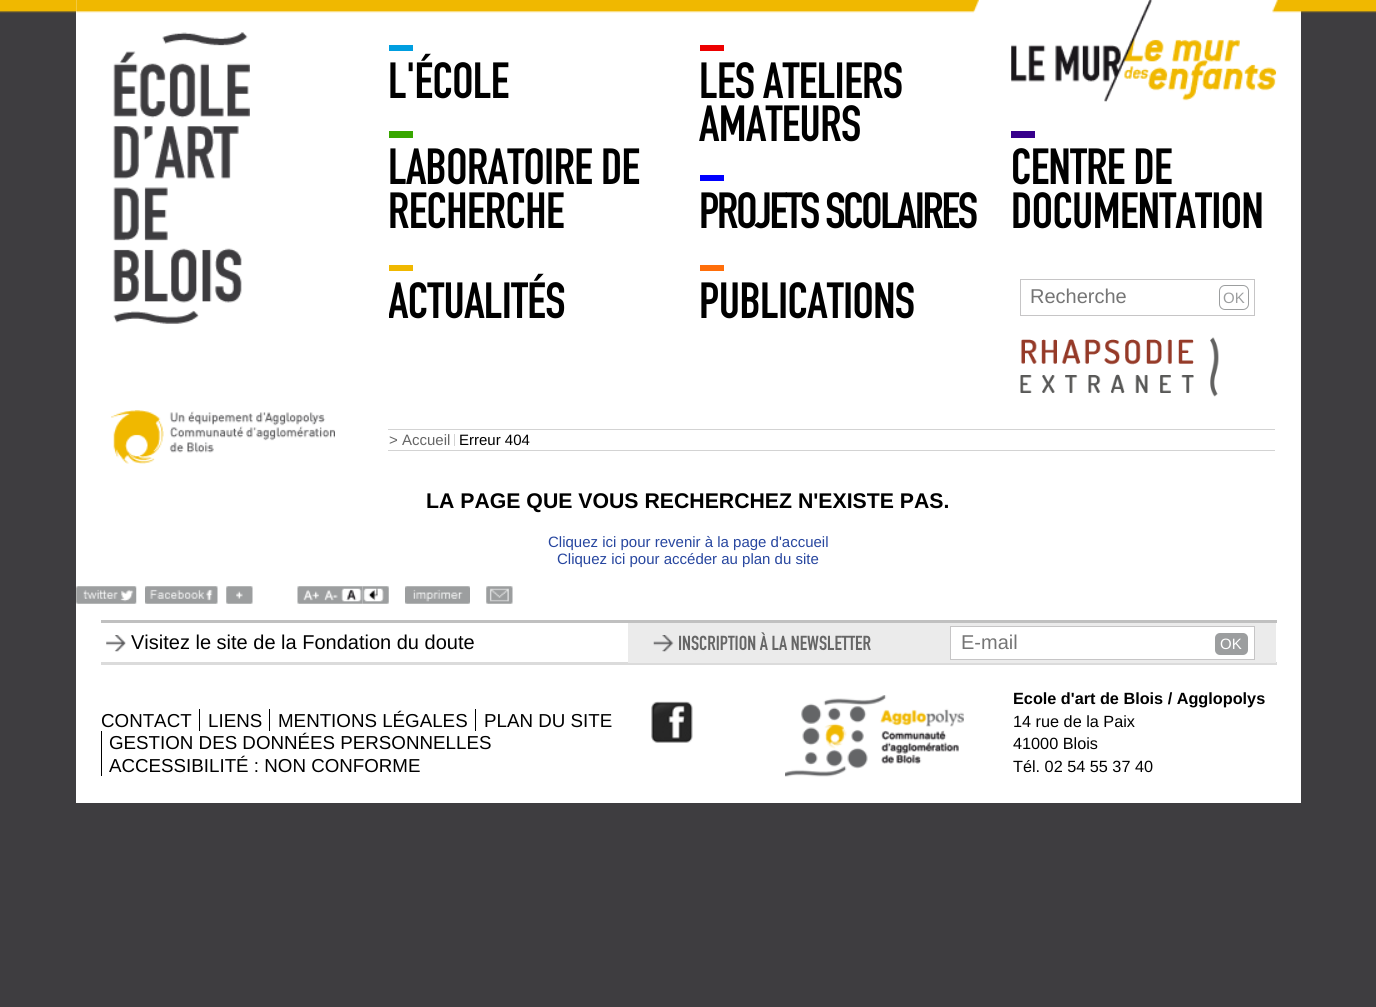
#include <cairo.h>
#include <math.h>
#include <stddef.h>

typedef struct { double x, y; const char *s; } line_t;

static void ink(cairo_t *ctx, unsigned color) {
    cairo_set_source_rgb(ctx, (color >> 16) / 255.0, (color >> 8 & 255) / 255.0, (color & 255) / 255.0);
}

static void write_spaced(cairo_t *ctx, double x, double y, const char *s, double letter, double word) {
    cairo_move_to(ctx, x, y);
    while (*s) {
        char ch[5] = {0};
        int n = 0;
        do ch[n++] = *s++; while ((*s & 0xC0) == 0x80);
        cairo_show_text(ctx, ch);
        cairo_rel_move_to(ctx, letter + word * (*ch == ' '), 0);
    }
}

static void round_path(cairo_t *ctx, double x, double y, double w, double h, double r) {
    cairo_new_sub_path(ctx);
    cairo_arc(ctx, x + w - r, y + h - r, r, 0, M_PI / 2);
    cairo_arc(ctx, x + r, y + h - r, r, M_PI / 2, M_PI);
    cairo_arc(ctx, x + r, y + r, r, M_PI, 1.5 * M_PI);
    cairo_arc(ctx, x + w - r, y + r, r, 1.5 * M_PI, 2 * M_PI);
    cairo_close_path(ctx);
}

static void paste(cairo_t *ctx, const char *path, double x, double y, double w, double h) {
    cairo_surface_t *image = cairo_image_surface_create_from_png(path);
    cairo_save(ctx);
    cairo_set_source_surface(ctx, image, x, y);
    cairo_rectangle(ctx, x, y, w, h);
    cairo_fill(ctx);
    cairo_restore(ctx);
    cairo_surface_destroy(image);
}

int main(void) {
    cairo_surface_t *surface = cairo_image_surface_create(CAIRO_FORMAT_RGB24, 1376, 1007);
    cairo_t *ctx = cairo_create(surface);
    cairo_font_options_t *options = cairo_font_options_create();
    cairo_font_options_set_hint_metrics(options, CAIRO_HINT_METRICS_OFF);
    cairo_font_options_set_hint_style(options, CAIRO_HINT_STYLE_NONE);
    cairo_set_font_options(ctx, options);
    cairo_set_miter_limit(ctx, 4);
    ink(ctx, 0x3E3D40);
    cairo_paint(ctx);
    paste(ctx, "media/1.png", 0, 0, 1376, 13);
    ink(ctx, 0xFFFFFF);
    cairo_rectangle(ctx, 76, 0, 1225, 803);
    cairo_fill(ctx);
    paste(ctx, "media/2.png", 76, 0, 1226, 13);
    paste(ctx, "media/3.png", 113, 32, 137, 292);
    paste(ctx, "media/4.png", 1011, 0, 266, 102);
    ink(ctx, 0x009EE0);
    cairo_rectangle(ctx, 389, 45, 24, 6);
    cairo_fill(ctx);
    cairo_select_font_face(ctx, "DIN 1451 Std", CAIRO_FONT_SLANT_NORMAL, CAIRO_FONT_WEIGHT_NORMAL);
    cairo_set_font_size(ctx, 50);
    ink(ctx, 0x000000);
    write_spaced(ctx, 388, 98, "L'ÉCOLE", -0.6, 0);
    ink(ctx, 0xED0000);
    cairo_rectangle(ctx, 700, 45, 24, 6);
    cairo_fill(ctx);
    ink(ctx, 0x000000);
    write_spaced(ctx, 699, 98, "LES ATELIERS", -0.6, 0);
    write_spaced(ctx, 699, 141, "AMATEURS", -0.6, 0);
    ink(ctx, 0x38A700);
    cairo_rectangle(ctx, 389, 131, 24, 7);
    cairo_fill(ctx);
    ink(ctx, 0x000000);
    write_spaced(ctx, 388, 184, "LABORATOIRE DE", -0.6, 0);
    write_spaced(ctx, 388, 228, "RECHERCHE", -0.6, 0);
    ink(ctx, 0x0000FF);
    cairo_rectangle(ctx, 700, 175, 24, 6);
    cairo_fill(ctx);
    ink(ctx, 0x000000);
    write_spaced(ctx, 699, 228, "PROJETS SCOLAIRES", -2.25, 0);
    ink(ctx, 0x37008C);
    cairo_rectangle(ctx, 1011, 131, 24, 7);
    cairo_fill(ctx);
    ink(ctx, 0x000000);
    write_spaced(ctx, 1011, 184, "CENTRE DE", -0.6, 0);
    write_spaced(ctx, 1011, 228, "DOCUMENTATION", -0.6, 0);
    ink(ctx, 0xF0B800);
    cairo_rectangle(ctx, 389, 265, 24, 6);
    cairo_fill(ctx);
    cairo_save(ctx);
    cairo_rectangle(ctx, 389, 45, 886, 280);
    cairo_clip(ctx);
    ink(ctx, 0x000000);
    write_spaced(ctx, 388, 318, "ACTUALITÉS", -0.6, 0);
    cairo_restore(ctx);
    ink(ctx, 0xFF6E0A);
    cairo_rectangle(ctx, 700, 265, 24, 6);
    cairo_fill(ctx);
    ink(ctx, 0x000000);
    write_spaced(ctx, 699, 318, "PUBLICATIONS", -0.6, 0);
    cairo_rectangle(ctx, 1020.5, 279.5, 234, 36);
    ink(ctx, 0xC6C5C6);
    cairo_set_line_width(ctx, 1);
    cairo_stroke(ctx);
    cairo_select_font_face(ctx, "Liberation Sans", CAIRO_FONT_SLANT_NORMAL, CAIRO_FONT_WEIGHT_NORMAL);
    cairo_set_font_size(ctx, 20);
    ink(ctx, 0x757575);
    cairo_move_to(ctx, 1030, 303);
    cairo_show_text(ctx, "Recherche");
    round_path(ctx, 1219.5, 285.5, 29, 24, 5.5);
    ink(ctx, 0x9C9E9F);
    cairo_stroke(ctx);
    cairo_set_font_size(ctx, 15);
    cairo_move_to(ctx, 1223, 303);
    cairo_show_text(ctx, "OK");
    paste(ctx, "media/5.png", 1020, 337, 199, 60);
    paste(ctx, "media/6.png", 111, 410, 224, 54);
    ink(ctx, 0xD3D3D3);
    cairo_rectangle(ctx, 388, 429, 887, 1);
    cairo_fill(ctx);
    cairo_rectangle(ctx, 388, 450, 887, 1);
    cairo_fill(ctx);
    ink(ctx, 0x666666);
    cairo_move_to(ctx, 389, 445);
    cairo_show_text(ctx, ">");
    cairo_move_to(ctx, 402, 445);
    cairo_show_text(ctx, "Accueil");
    ink(ctx, 0xD3D3D3);
    cairo_rectangle(ctx, 454, 434, 1, 12);
    cairo_fill(ctx);
    ink(ctx, 0x000000);
    cairo_move_to(ctx, 459, 445);
    cairo_show_text(ctx, "Erreur 404");
    cairo_select_font_face(ctx, "Liberation Sans", CAIRO_FONT_SLANT_NORMAL, CAIRO_FONT_WEIGHT_BOLD);
    cairo_set_font_size(ctx, 21.25);
    cairo_move_to(ctx, 426, 508);
    cairo_show_text(ctx, "LA PAGE QUE VOUS RECHERCHEZ N'EXISTE PAS.");
    cairo_select_font_face(ctx, "Liberation Sans", CAIRO_FONT_SLANT_NORMAL, CAIRO_FONT_WEIGHT_NORMAL);
    cairo_set_font_size(ctx, 15);
    ink(ctx, 0x27469F);
    cairo_move_to(ctx, 548, 547);
    cairo_show_text(ctx, "Cliquez ici pour revenir à la page d'accueil");
    cairo_move_to(ctx, 557, 564);
    cairo_show_text(ctx, "Cliquez ici pour accéder au plan du site");
    paste(ctx, "media/7.png", 76, 586, 61, 18);
    paste(ctx, "media/8.png", 145, 586, 73, 18);
    paste(ctx, "media/9.png", 226, 586, 27, 18);
    paste(ctx, "media/10.png", 297, 586, 23, 18);
    paste(ctx, "media/11.png", 320, 586, 20, 18);
    paste(ctx, "media/12.png", 340, 586, 23, 18);
    paste(ctx, "media/13.png", 362, 586, 27, 18);
    paste(ctx, "media/14.png", 405, 586, 65, 18);
    paste(ctx, "media/15.png", 486, 586, 27, 18);
    ink(ctx, 0xC0C0C0);
    cairo_rectangle(ctx, 101, 620, 1176, 3);
    cairo_fill(ctx);
    ink(ctx, 0xDBDBDB);
    cairo_rectangle(ctx, 101, 662, 1176, 3);
    cairo_fill(ctx);
    paste(ctx, "media/16.png", 106, 635, 20, 17);
    cairo_set_font_size(ctx, 20);
    ink(ctx, 0x000000);
    cairo_move_to(ctx, 131, 649);
    cairo_show_text(ctx, "Visitez le site de la Fondation du doute");
    ink(ctx, 0xEBEBEB);
    cairo_rectangle(ctx, 628, 623, 648, 40);
    cairo_fill(ctx);
    paste(ctx, "media/17.png", 653, 635, 21, 17);
    cairo_select_font_face(ctx, "DIN 1451 Std", CAIRO_FONT_SLANT_NORMAL, CAIRO_FONT_WEIGHT_NORMAL);
    ink(ctx, 0x666666);
    cairo_move_to(ctx, 678, 650);
    cairo_show_text(ctx, "INSCRIPTION À LA NEWSLETTER");
    ink(ctx, 0xFFFFFF);
    cairo_rectangle(ctx, 950.5, 626.5, 304, 33);
    cairo_fill_preserve(ctx);
    ink(ctx, 0xC6C5C6);
    cairo_stroke(ctx);
    cairo_select_font_face(ctx, "Liberation Sans", CAIRO_FONT_SLANT_NORMAL, CAIRO_FONT_WEIGHT_NORMAL);
    ink(ctx, 0x757575);
    cairo_move_to(ctx, 961, 649);
    cairo_show_text(ctx, "E-mail");
    ink(ctx, 0x9C9E9F);
    round_path(ctx, 1215, 633, 33, 22, 5);
    cairo_fill(ctx);
    cairo_set_font_size(ctx, 15);
    ink(ctx, 0xFFFFFF);
    cairo_move_to(ctx, 1220, 649);
    cairo_show_text(ctx, "OK");
    cairo_set_font_size(ctx, 18.75);
    ink(ctx, 0x000000);
    cairo_move_to(ctx, 101, 727);
    cairo_show_text(ctx, "CONTACT");
    cairo_rectangle(ctx, 199, 709, 1, 22);
    cairo_fill(ctx);
    cairo_move_to(ctx, 208, 727);
    cairo_show_text(ctx, "LIENS");
    cairo_rectangle(ctx, 269, 709, 1, 22);
    cairo_fill(ctx);
    cairo_move_to(ctx, 278, 727);
    cairo_show_text(ctx, "MENTIONS LÉGALES");
    cairo_rectangle(ctx, 475, 709, 1, 22);
    cairo_fill(ctx);
    cairo_move_to(ctx, 484, 727);
    cairo_show_text(ctx, "PLAN DU SITE");
    cairo_rectangle(ctx, 101, 731, 1, 45);
    cairo_fill(ctx);
    cairo_move_to(ctx, 109, 749);
    cairo_show_text(ctx, "GESTION DES DONNÉES PERSONNELLES");
    cairo_move_to(ctx, 109, 772);
    cairo_show_text(ctx, "ACCESSIBILITÉ : NON CONFORME");
    paste(ctx, "media/18.png", 651, 701, 42, 42);
    paste(ctx, "media/19.png", 785, 695, 179, 82);
    cairo_select_font_face(ctx, "Liberation Sans", CAIRO_FONT_SLANT_NORMAL, CAIRO_FONT_WEIGHT_BOLD);
    cairo_set_font_size(ctx, 16.25);
    cairo_move_to(ctx, 1013, 704);
    cairo_show_text(ctx, "Ecole d'art de Blois / Agglopolys");
    cairo_select_font_face(ctx, "Liberation Sans", CAIRO_FONT_SLANT_NORMAL, CAIRO_FONT_WEIGHT_NORMAL);
    {
        static const line_t items[] = {
            {1013, 727, "14 rue de la Paix"},
            {1013, 749, "41000 Blois"},
            {1013, 772, "Tél. 02 54 55 37 40"},
        };
        for (size_t i = 0; i < sizeof items / sizeof *items; i++) {
            cairo_move_to(ctx, items[i].x, items[i].y);
            cairo_show_text(ctx, items[i].s);
        }
    }
    cairo_surface_write_to_png(surface, "image.png");
    cairo_font_options_destroy(options);
    cairo_destroy(ctx);
    cairo_surface_destroy(surface);
    return 0;
}
